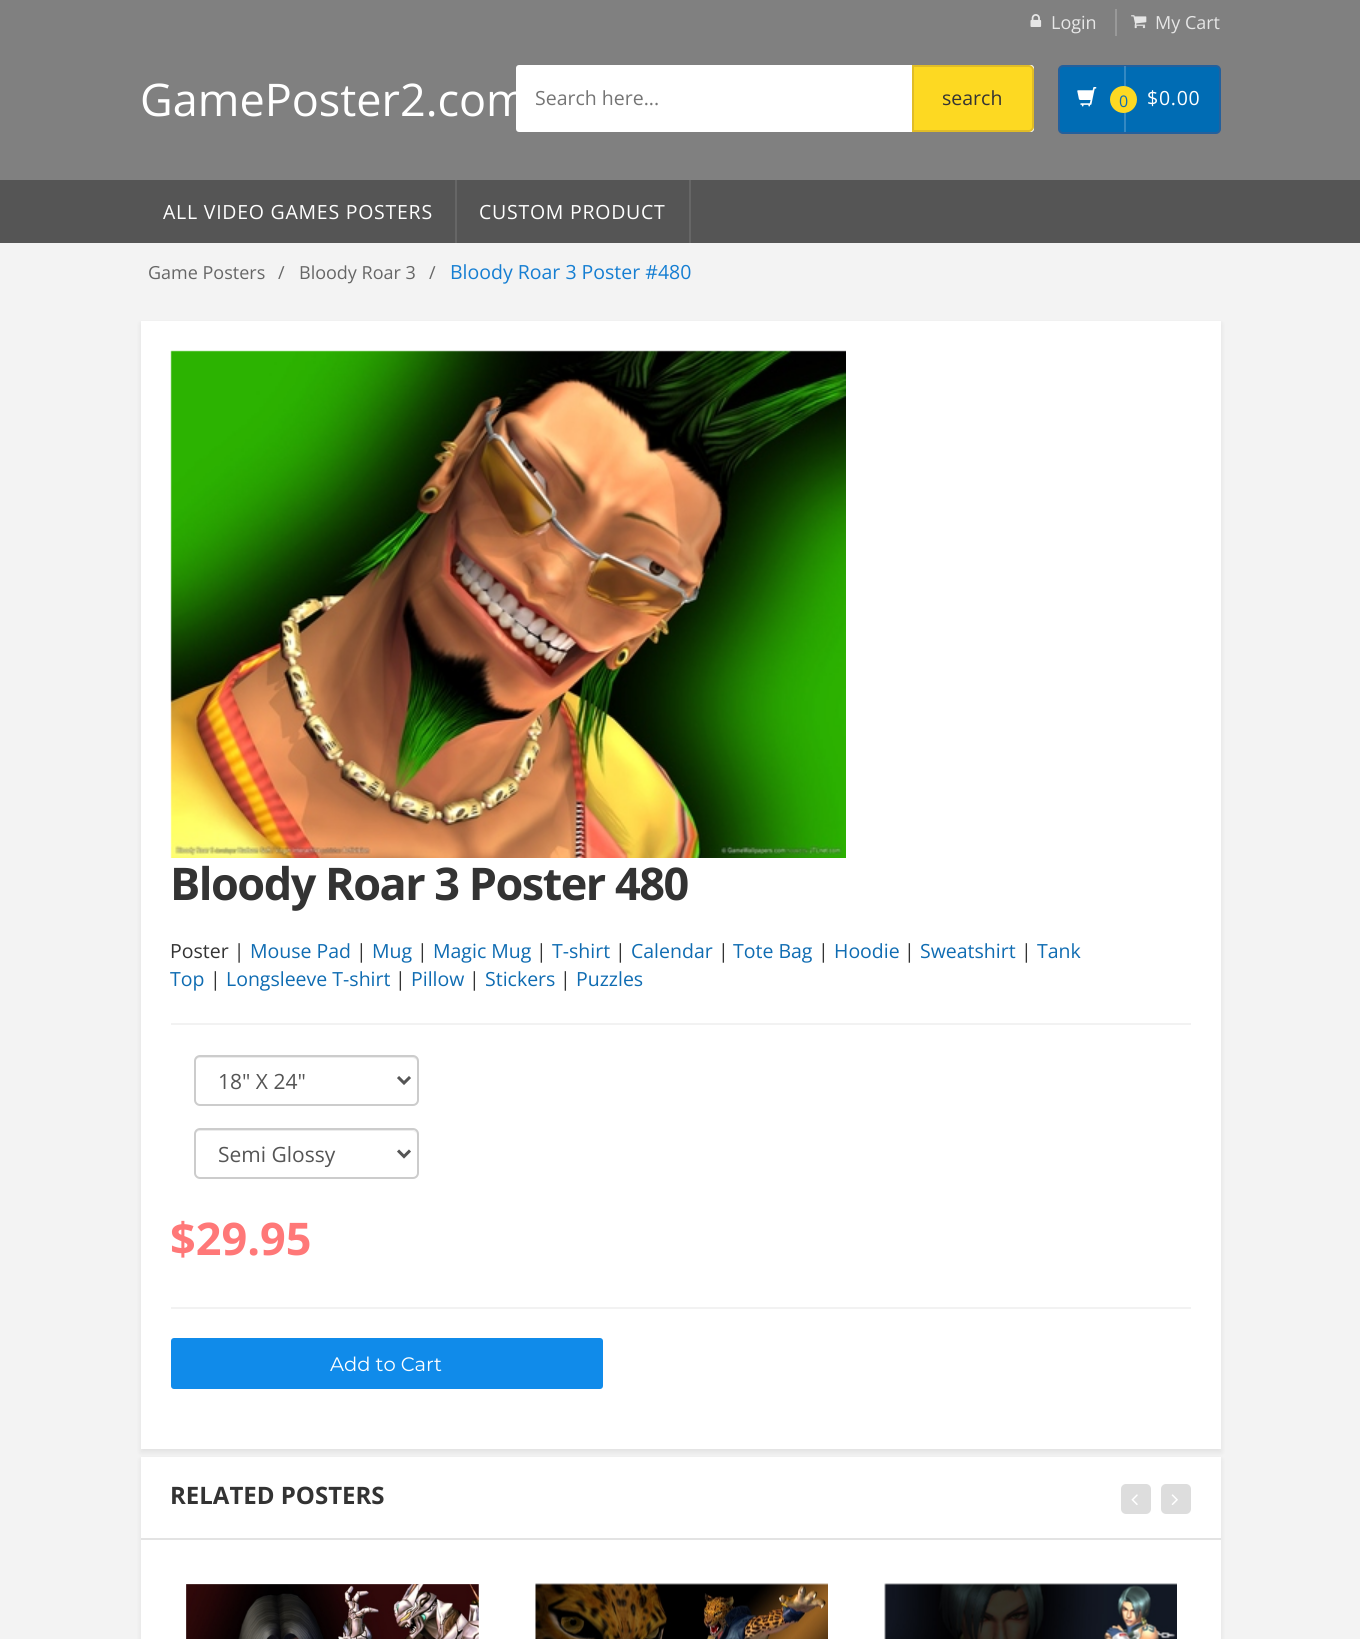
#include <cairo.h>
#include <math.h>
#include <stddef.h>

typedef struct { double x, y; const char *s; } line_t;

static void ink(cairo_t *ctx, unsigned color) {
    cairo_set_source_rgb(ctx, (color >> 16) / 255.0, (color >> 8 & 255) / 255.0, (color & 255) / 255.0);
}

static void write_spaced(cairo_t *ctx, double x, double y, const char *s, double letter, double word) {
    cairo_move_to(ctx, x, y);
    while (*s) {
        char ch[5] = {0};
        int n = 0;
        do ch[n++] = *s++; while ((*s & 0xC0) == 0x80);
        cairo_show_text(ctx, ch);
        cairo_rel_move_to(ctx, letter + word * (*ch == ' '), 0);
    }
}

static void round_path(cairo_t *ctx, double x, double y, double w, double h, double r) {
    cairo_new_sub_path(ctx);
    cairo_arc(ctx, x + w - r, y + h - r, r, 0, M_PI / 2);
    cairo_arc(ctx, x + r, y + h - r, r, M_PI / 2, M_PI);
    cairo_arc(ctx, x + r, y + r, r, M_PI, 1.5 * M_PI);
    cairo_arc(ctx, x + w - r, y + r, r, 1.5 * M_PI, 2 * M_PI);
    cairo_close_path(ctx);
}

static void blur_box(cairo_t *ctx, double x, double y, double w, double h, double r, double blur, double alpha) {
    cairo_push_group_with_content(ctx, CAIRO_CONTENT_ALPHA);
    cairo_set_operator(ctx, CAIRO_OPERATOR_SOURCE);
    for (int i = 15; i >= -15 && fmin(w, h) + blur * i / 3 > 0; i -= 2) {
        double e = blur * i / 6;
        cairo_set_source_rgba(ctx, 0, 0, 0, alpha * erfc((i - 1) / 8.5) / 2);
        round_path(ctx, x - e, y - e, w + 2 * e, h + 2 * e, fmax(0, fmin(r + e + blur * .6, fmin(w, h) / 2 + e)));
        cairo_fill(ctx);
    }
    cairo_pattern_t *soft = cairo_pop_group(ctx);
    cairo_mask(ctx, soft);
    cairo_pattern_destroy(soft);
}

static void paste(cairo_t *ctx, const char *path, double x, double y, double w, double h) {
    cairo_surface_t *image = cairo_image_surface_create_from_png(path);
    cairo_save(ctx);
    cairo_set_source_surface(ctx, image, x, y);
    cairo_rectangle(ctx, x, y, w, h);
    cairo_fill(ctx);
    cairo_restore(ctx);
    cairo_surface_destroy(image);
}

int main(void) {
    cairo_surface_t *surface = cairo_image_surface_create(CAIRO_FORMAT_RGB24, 1360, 1639);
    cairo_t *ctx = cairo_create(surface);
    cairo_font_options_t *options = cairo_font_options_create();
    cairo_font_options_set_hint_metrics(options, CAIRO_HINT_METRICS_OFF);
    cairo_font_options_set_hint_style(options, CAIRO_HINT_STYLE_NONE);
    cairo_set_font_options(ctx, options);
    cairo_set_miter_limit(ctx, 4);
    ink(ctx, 0xF3F3F3);
    cairo_paint(ctx);
    ink(ctx, 0x808080);
    cairo_rectangle(ctx, 0, 0, 1360, 180);
    cairo_fill(ctx);
    ink(ctx, 0x999999);
    cairo_rectangle(ctx, 1115, 9, 2, 27);
    cairo_fill(ctx);
    paste(ctx, "media/1.png", 1030, 14, 12, 13);
    cairo_select_font_face(ctx, "Open Sans", CAIRO_FONT_SLANT_NORMAL, CAIRO_FONT_WEIGHT_NORMAL);
    cairo_set_font_size(ctx, 18);
    ink(ctx, 0xE6E6E6);
    cairo_move_to(ctx, 1051, 29);
    cairo_show_text(ctx, "Login");
    paste(ctx, "media/2.png", 1131, 15, 16, 14);
    cairo_move_to(ctx, 1155, 29);
    cairo_show_text(ctx, "My Cart");
    cairo_set_font_size(ctx, 45);
    ink(ctx, 0xFFFFFF);
    cairo_move_to(ctx, 140, 116);
    cairo_show_text(ctx, "GamePoster2.com");
    round_path(ctx, 516, 65, 518, 67, 3);
    cairo_fill(ctx);
    cairo_set_font_size(ctx, 19.5);
    ink(ctx, 0x757575);
    cairo_move_to(ctx, 535, 105);
    cairo_show_text(ctx, "Search here...");
    ink(ctx, 0xFDD922);
    cairo_new_path(ctx);
    cairo_move_to(ctx, 913, 66);
    cairo_line_to(ctx, 1029, 66);
    cairo_curve_to(ctx, 1031, 66, 1033, 68, 1033, 70);
    cairo_line_to(ctx, 1033, 127);
    cairo_curve_to(ctx, 1033, 129, 1031, 131, 1029, 131);
    cairo_line_to(ctx, 913, 131);
    cairo_close_path(ctx);
    cairo_fill_preserve(ctx);
    ink(ctx, 0xE0BC27);
    cairo_stroke(ctx);
    ink(ctx, 0x333333);
    cairo_move_to(ctx, 942, 105);
    cairo_show_text(ctx, "search");
    ink(ctx, 0x006CB4);
    round_path(ctx, 1059, 66, 161, 67, 4);
    cairo_fill_preserve(ctx);
    ink(ctx, 0x24609C);
    cairo_stroke(ctx);
    cairo_set_source_rgba(ctx, 1, 1, 1, 0.2);
    cairo_rectangle(ctx, 1124, 66, 2, 66);
    cairo_fill(ctx);
    paste(ctx, "media/3.png", 1077, 87, 20, 20);
    ink(ctx, 0xFFFFFF);
    write_spaced(ctx, 1147, 105, "$0.00", 0.75, 0);
    ink(ctx, 0xFDD922);
    cairo_new_path(ctx);
    cairo_arc(ctx, 1123.5, 99.5, 13.5, 0, 2 * M_PI);
    cairo_fill(ctx);
    cairo_set_font_size(ctx, 16);
    ink(ctx, 0x0F6CB2);
    cairo_move_to(ctx, 1119, 107);
    cairo_show_text(ctx, "0");
    ink(ctx, 0x555555);
    cairo_rectangle(ctx, 0, 180, 1360, 63);
    cairo_fill(ctx);
    ink(ctx, 0x666666);
    cairo_rectangle(ctx, 455, 180, 2, 63);
    cairo_fill(ctx);
    cairo_set_font_size(ctx, 19.5);
    ink(ctx, 0xFFFFFF);
    write_spaced(ctx, 163, 219, "ALL VIDEO GAMES POSTERS", 0.75, 0);
    ink(ctx, 0x666666);
    cairo_rectangle(ctx, 689, 180, 2, 63);
    cairo_fill(ctx);
    ink(ctx, 0xFFFFFF);
    write_spaced(ctx, 479, 219, "CUSTOM PRODUCT", 0.75, 0);
    cairo_set_font_size(ctx, 18);
    ink(ctx, 0x666666);
    {
        static const line_t items[] = {
            {148, 279, "Game Posters"},
            {278, 279, "/"},
            {299, 279, "Bloody Roar 3"},
            {429, 279, "/"},
        };
        for (size_t i = 0; i < sizeof items / sizeof *items; i++) {
            cairo_move_to(ctx, items[i].x, items[i].y);
            cairo_show_text(ctx, items[i].s);
        }
    }
    cairo_set_font_size(ctx, 19.5);
    ink(ctx, 0x157ED2);
    cairo_move_to(ctx, 450, 279);
    cairo_show_text(ctx, "Bloody Roar 3 Poster #480");
    ink(ctx, 0x000000);
    blur_box(ctx, 141, 324, 1080, 1128, 0, 3, 0.08);
    ink(ctx, 0xFFFFFF);
    cairo_rectangle(ctx, 141, 321, 1080, 1128);
    cairo_fill(ctx);
    paste(ctx, "media/4.png", 170, 350, 676, 508);
    cairo_select_font_face(ctx, "Open Sans", CAIRO_FONT_SLANT_NORMAL, CAIRO_FONT_WEIGHT_BOLD);
    cairo_set_font_size(ctx, 45);
    ink(ctx, 0x333333);
    write_spaced(ctx, 170, 900, "Bloody Roar 3 Poster 480", -1.5, 0);
    cairo_select_font_face(ctx, "Open Sans", CAIRO_FONT_SLANT_NORMAL, CAIRO_FONT_WEIGHT_NORMAL);
    cairo_set_font_size(ctx, 19.5);
    cairo_move_to(ctx, 170, 958);
    cairo_show_text(ctx, "Poster |");
    ink(ctx, 0x0F6CB2);
    cairo_move_to(ctx, 250, 958);
    cairo_show_text(ctx, "Mouse Pad");
    ink(ctx, 0x333333);
    cairo_move_to(ctx, 356, 958);
    cairo_show_text(ctx, "|");
    ink(ctx, 0x0F6CB2);
    cairo_move_to(ctx, 372, 958);
    cairo_show_text(ctx, "Mug");
    ink(ctx, 0x333333);
    cairo_move_to(ctx, 417, 958);
    cairo_show_text(ctx, "|");
    ink(ctx, 0x0F6CB2);
    cairo_move_to(ctx, 433, 958);
    cairo_show_text(ctx, "Magic Mug");
    ink(ctx, 0x333333);
    cairo_move_to(ctx, 536, 958);
    cairo_show_text(ctx, "|");
    ink(ctx, 0x0F6CB2);
    cairo_move_to(ctx, 552, 958);
    cairo_show_text(ctx, "T-shirt");
    ink(ctx, 0x333333);
    cairo_move_to(ctx, 615, 958);
    cairo_show_text(ctx, "|");
    ink(ctx, 0x0F6CB2);
    cairo_move_to(ctx, 631, 958);
    cairo_show_text(ctx, "Calendar");
    ink(ctx, 0x333333);
    cairo_move_to(ctx, 718, 958);
    cairo_show_text(ctx, "|");
    ink(ctx, 0x0F6CB2);
    cairo_move_to(ctx, 733, 958);
    cairo_show_text(ctx, "Tote Bag");
    ink(ctx, 0x333333);
    cairo_move_to(ctx, 818, 958);
    cairo_show_text(ctx, "|");
    ink(ctx, 0x0F6CB2);
    cairo_move_to(ctx, 834, 958);
    cairo_show_text(ctx, "Hoodie");
    ink(ctx, 0x333333);
    cairo_move_to(ctx, 904, 958);
    cairo_show_text(ctx, "|");
    ink(ctx, 0x0F6CB2);
    cairo_move_to(ctx, 920, 958);
    cairo_show_text(ctx, "Sweatshirt");
    ink(ctx, 0x333333);
    cairo_move_to(ctx, 1021, 958);
    cairo_show_text(ctx, "|");
    ink(ctx, 0x0F6CB2);
    cairo_move_to(ctx, 1037, 958);
    cairo_show_text(ctx, "Tank");
    cairo_move_to(ctx, 170, 986);
    cairo_show_text(ctx, "Top");
    ink(ctx, 0x333333);
    cairo_move_to(ctx, 210, 986);
    cairo_show_text(ctx, "|");
    ink(ctx, 0x0F6CB2);
    cairo_move_to(ctx, 226, 986);
    cairo_show_text(ctx, "Longsleeve T-shirt");
    ink(ctx, 0x333333);
    cairo_move_to(ctx, 395, 986);
    cairo_show_text(ctx, "|");
    ink(ctx, 0x0F6CB2);
    cairo_move_to(ctx, 411, 986);
    cairo_show_text(ctx, "Pillow");
    ink(ctx, 0x333333);
    cairo_move_to(ctx, 469, 986);
    cairo_show_text(ctx, "|");
    ink(ctx, 0x0F6CB2);
    cairo_move_to(ctx, 485, 986);
    cairo_show_text(ctx, "Stickers");
    ink(ctx, 0x333333);
    cairo_move_to(ctx, 560, 986);
    cairo_show_text(ctx, "|");
    ink(ctx, 0x0F6CB2);
    cairo_move_to(ctx, 576, 986);
    cairo_show_text(ctx, "Puzzles");
    ink(ctx, 0xF2F2F2);
    cairo_rectangle(ctx, 171, 1023, 1020, 2);
    cairo_fill(ctx);
    cairo_rectangle(ctx, 171, 1307, 1020, 2);
    cairo_fill(ctx);
    ink(ctx, 0xECECEC);
    cairo_new_path(ctx);
    cairo_move_to(ctx, 200, 1058);
    cairo_line_to(ctx, 412, 1058);
    cairo_curve_to(ctx, 415, 1058, 417, 1060, 417, 1062);
    cairo_line_to(ctx, 417, 1061);
    cairo_curve_to(ctx, 417, 1058, 415, 1056, 412, 1056);
    cairo_line_to(ctx, 200, 1056);
    cairo_curve_to(ctx, 197, 1056, 195, 1058, 195, 1061);
    cairo_line_to(ctx, 195, 1062);
    cairo_curve_to(ctx, 195, 1060, 197, 1058, 200, 1058);
    cairo_close_path(ctx);
    cairo_fill(ctx);
    round_path(ctx, 195, 1056, 223, 49, 5);
    ink(ctx, 0xCCCCCC);
    cairo_stroke(ctx);
    cairo_new_path(ctx);
    cairo_move_to(ctx, 398, 1077);
    cairo_line_to(ctx, 404, 1083);
    cairo_line_to(ctx, 410, 1077);
    ink(ctx, 0x555555);
    cairo_set_line_width(ctx, 3);
    cairo_stroke(ctx);
    cairo_set_font_size(ctx, 21);
    cairo_move_to(ctx, 218, 1089);
    cairo_show_text(ctx, "18\" X 24\"");
    ink(ctx, 0xECECEC);
    cairo_new_path(ctx);
    cairo_move_to(ctx, 200, 1131);
    cairo_line_to(ctx, 412, 1131);
    cairo_curve_to(ctx, 415, 1131, 417, 1133, 417, 1136);
    cairo_line_to(ctx, 417, 1135);
    cairo_curve_to(ctx, 417, 1132, 415, 1130, 412, 1130);
    cairo_line_to(ctx, 200, 1130);
    cairo_curve_to(ctx, 197, 1130, 195, 1132, 195, 1135);
    cairo_line_to(ctx, 195, 1136);
    cairo_curve_to(ctx, 195, 1133, 197, 1131, 200, 1131);
    cairo_close_path(ctx);
    cairo_fill(ctx);
    round_path(ctx, 195, 1129, 223, 49, 5);
    ink(ctx, 0xCCCCCC);
    cairo_set_line_width(ctx, 2);
    cairo_stroke(ctx);
    cairo_new_path(ctx);
    cairo_move_to(ctx, 398, 1150.5);
    cairo_line_to(ctx, 404, 1156.5);
    cairo_line_to(ctx, 410, 1150.5);
    ink(ctx, 0x555555);
    cairo_set_line_width(ctx, 3);
    cairo_stroke(ctx);
    cairo_move_to(ctx, 218, 1162);
    cairo_show_text(ctx, "Semi Glossy");
    cairo_select_font_face(ctx, "Open Sans", CAIRO_FONT_SLANT_NORMAL, CAIRO_FONT_WEIGHT_BOLD);
    cairo_set_font_size(ctx, 45);
    ink(ctx, 0xFF7878);
    cairo_move_to(ctx, 170, 1255);
    cairo_show_text(ctx, "$29.95");
    ink(ctx, 0x108BEA);
    round_path(ctx, 171, 1338, 432, 51, 3);
    cairo_fill(ctx);
    cairo_select_font_face(ctx, "Montserrat", CAIRO_FONT_SLANT_NORMAL, CAIRO_FONT_WEIGHT_NORMAL);
    cairo_set_font_size(ctx, 19.5);
    ink(ctx, 0xFFFFFF);
    cairo_move_to(ctx, 330, 1371);
    cairo_show_text(ctx, "Add to Cart");
    ink(ctx, 0x000000);
    blur_box(ctx, 141, 1460, 1080, 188, 0, 3, 0.08);
    ink(ctx, 0xFFFFFF);
    cairo_rectangle(ctx, 141, 1457, 1080, 182);
    cairo_fill(ctx);
    ink(ctx, 0xDDDDDD);
    round_path(ctx, 1121, 1484, 30, 30, 5);
    cairo_fill(ctx);
    paste(ctx, "media/5.png", 1131, 1494, 7, 11);
    round_path(ctx, 1161, 1484, 30, 30, 5);
    cairo_fill(ctx);
    paste(ctx, "media/6.png", 1171, 1494, 7, 11);
    paste(ctx, "media/7.png", 186, 1584, 293, 55);
    paste(ctx, "media/8.png", 535, 1583, 293, 56);
    paste(ctx, "media/9.png", 884, 1583, 293, 56);
    ink(ctx, 0xE3E3E3);
    cairo_rectangle(ctx, 141, 1538, 1080, 2);
    cairo_fill(ctx);
    cairo_select_font_face(ctx, "Open Sans", CAIRO_FONT_SLANT_NORMAL, CAIRO_FONT_WEIGHT_BOLD);
    cairo_set_font_size(ctx, 24);
    ink(ctx, 0x333333);
    cairo_move_to(ctx, 170, 1504);
    cairo_show_text(ctx, "RELATED POSTERS");
    cairo_surface_write_to_png(surface, "image.png");
    cairo_font_options_destroy(options);
    cairo_destroy(ctx);
    cairo_surface_destroy(surface);
    return 0;
}
